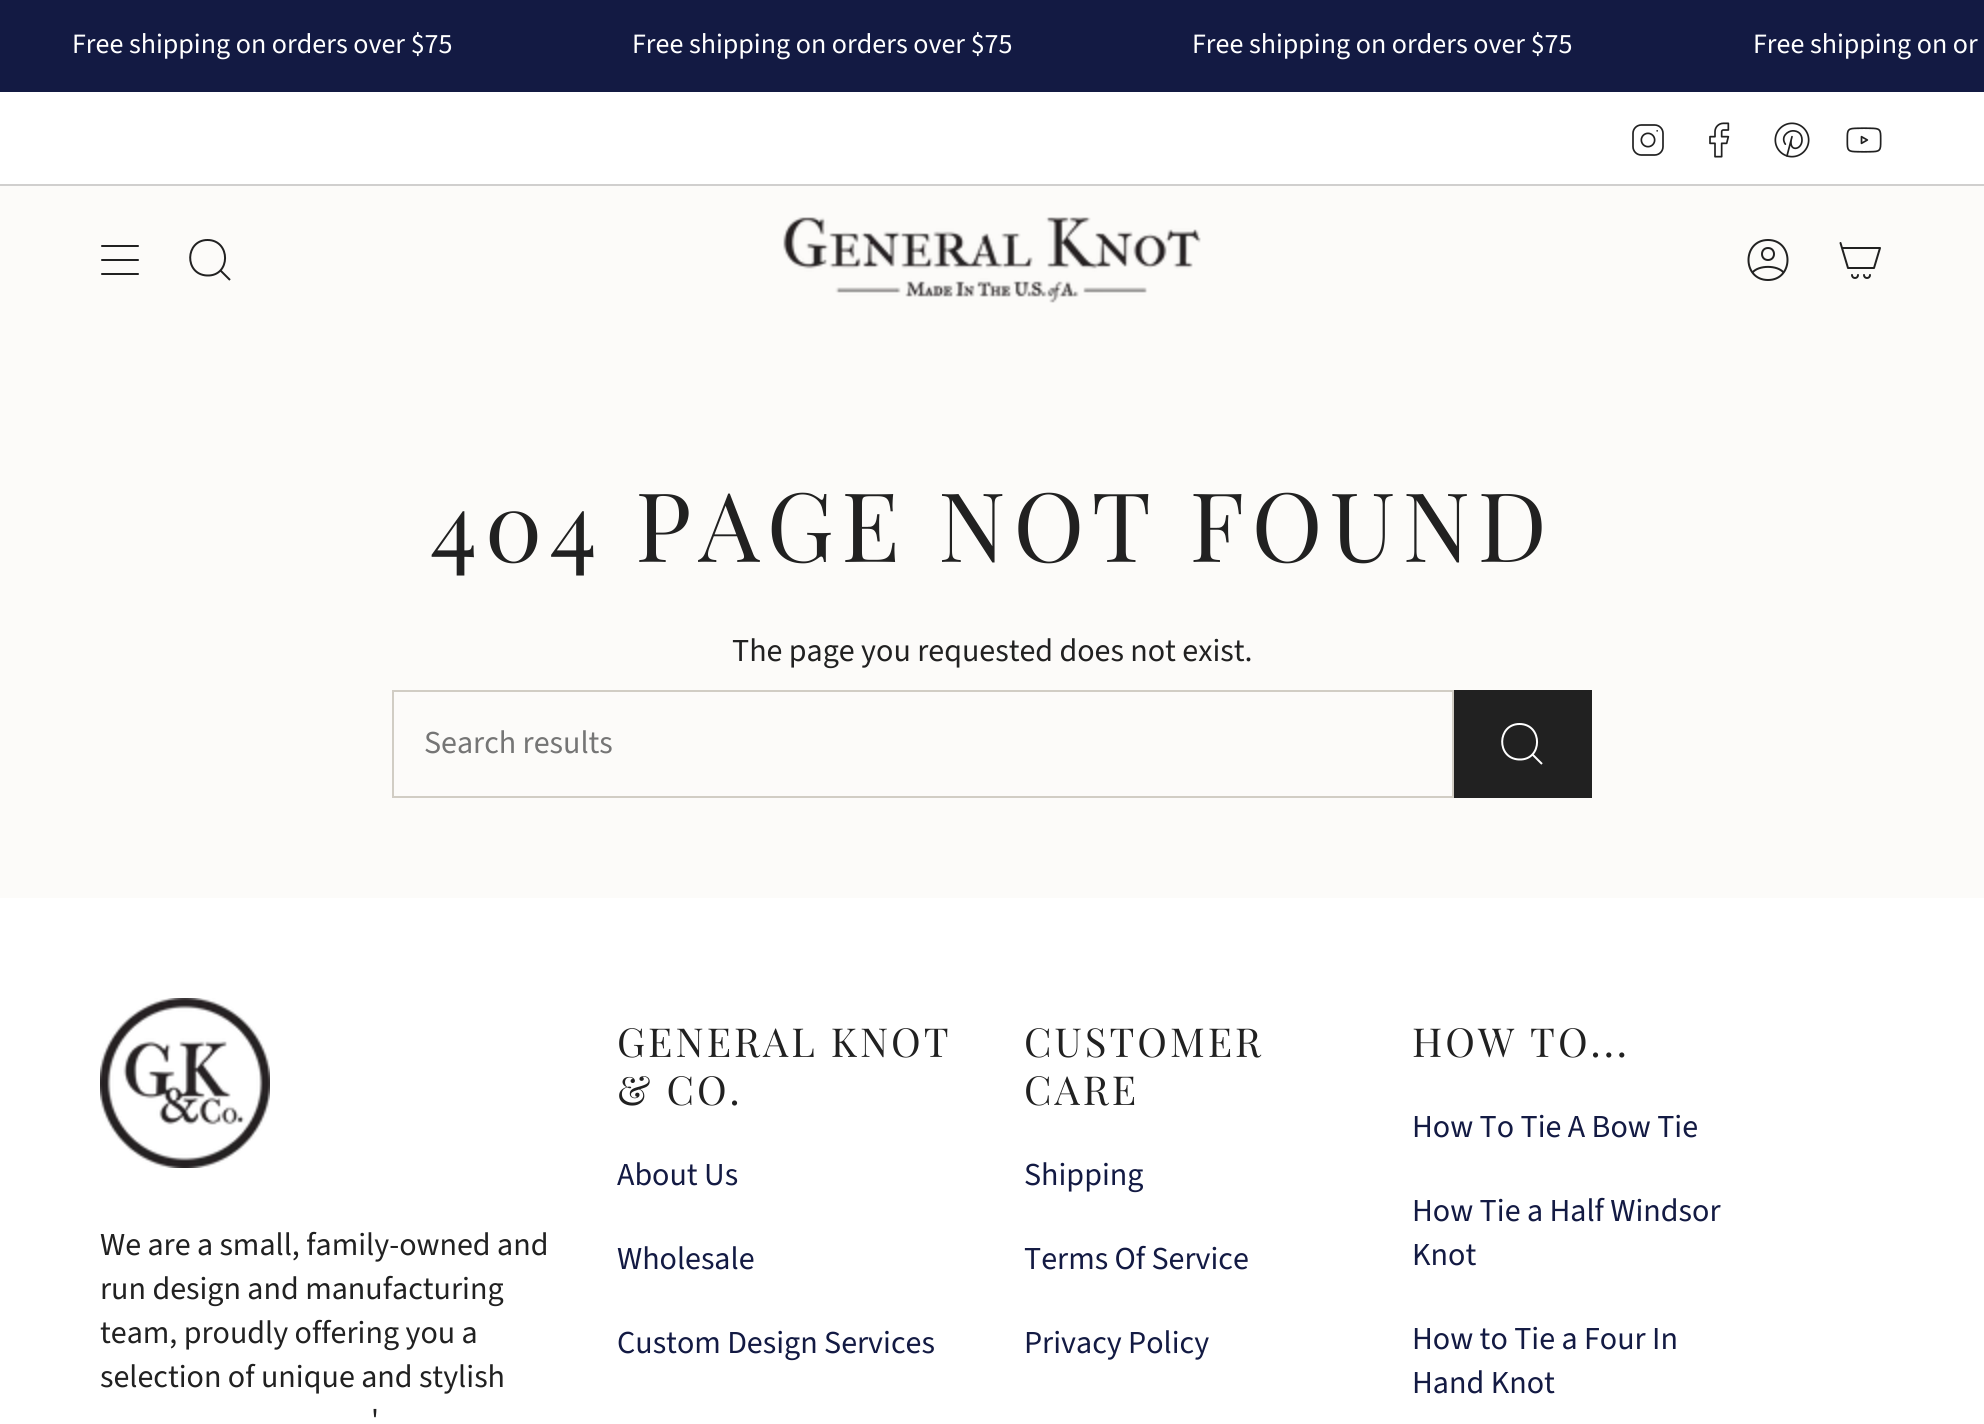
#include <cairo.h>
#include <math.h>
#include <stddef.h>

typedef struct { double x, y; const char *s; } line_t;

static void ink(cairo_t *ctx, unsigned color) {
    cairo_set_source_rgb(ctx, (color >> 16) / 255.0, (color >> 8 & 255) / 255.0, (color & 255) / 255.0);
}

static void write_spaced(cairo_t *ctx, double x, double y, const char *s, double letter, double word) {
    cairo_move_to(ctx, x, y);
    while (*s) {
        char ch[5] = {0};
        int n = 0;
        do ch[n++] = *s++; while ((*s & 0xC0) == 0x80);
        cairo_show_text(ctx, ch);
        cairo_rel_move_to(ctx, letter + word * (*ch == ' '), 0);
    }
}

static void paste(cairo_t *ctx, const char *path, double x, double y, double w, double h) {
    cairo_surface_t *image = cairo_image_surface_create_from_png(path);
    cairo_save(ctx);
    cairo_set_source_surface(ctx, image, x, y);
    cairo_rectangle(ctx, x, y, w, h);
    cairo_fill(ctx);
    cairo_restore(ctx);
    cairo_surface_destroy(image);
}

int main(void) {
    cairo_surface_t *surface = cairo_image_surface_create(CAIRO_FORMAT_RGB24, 1984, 1424);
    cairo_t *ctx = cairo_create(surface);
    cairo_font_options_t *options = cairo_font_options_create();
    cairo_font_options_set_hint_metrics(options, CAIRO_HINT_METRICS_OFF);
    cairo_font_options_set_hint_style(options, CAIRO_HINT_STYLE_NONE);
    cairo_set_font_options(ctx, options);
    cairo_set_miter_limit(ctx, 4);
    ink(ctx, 0xFFFFFF);
    cairo_paint(ctx);
    ink(ctx, 0x131A43);
    cairo_rectangle(ctx, 0, 0, 1984, 92);
    cairo_fill(ctx);
    cairo_select_font_face(ctx, "Source Sans Pro", CAIRO_FONT_SLANT_NORMAL, CAIRO_FONT_WEIGHT_NORMAL);
    cairo_set_font_size(ctx, 28);
    ink(ctx, 0xFFFFFF);
    {
        static const line_t items[] = {
            {72, 53, "Free shipping on orders over $75"},
            {632, 53, "Free shipping on orders over $75"},
            {1192, 53, "Free shipping on orders over $75"},
            {1753, 53, "Free shipping on or"},
        };
        for (size_t i = 0; i < sizeof items / sizeof *items; i++) {
            cairo_move_to(ctx, items[i].x, items[i].y);
            cairo_show_text(ctx, items[i].s);
        }
    }
    paste(ctx, "media/1.png", 1632, 124, 32, 32);
    paste(ctx, "media/2.png", 1709, 122, 21, 36);
    paste(ctx, "media/3.png", 1774, 122, 36, 36);
    paste(ctx, "media/4.png", 1846, 127, 36, 26);
    ink(ctx, 0xD0CFCE);
    cairo_rectangle(ctx, 0, 184, 1984, 2);
    cairo_fill(ctx);
    ink(ctx, 0xFCFBF9);
    cairo_rectangle(ctx, 0, 186, 1984, 712);
    cairo_fill(ctx);
    cairo_new_path(ctx);
    cairo_move_to(ctx, 102, 246);
    cairo_line_to(ctx, 138, 246);
    cairo_move_to(ctx, 102, 260);
    cairo_line_to(ctx, 138, 260);
    cairo_move_to(ctx, 102, 274);
    cairo_line_to(ctx, 138, 274);
    ink(ctx, 0x212121);
    cairo_set_line_cap(ctx, CAIRO_LINE_CAP_ROUND);
    cairo_set_line_join(ctx, CAIRO_LINE_JOIN_ROUND);
    cairo_stroke(ctx);
    cairo_new_path(ctx);
    cairo_move_to(ctx, 207.5, 240);
    cairo_curve_to(ctx, 231, 240, 231, 276.5, 207, 275.5);
    cairo_curve_to(ctx, 184, 274.5, 185, 240, 207.5, 240);
    cairo_close_path(ctx);
    cairo_move_to(ctx, 220, 270);
    cairo_line_to(ctx, 230, 280);
    cairo_set_line_cap(ctx, CAIRO_LINE_CAP_BUTT);
    cairo_set_line_join(ctx, CAIRO_LINE_JOIN_MITER);
    cairo_stroke(ctx);
    paste(ctx, "media/5.png", 783, 217, 418, 86);
    cairo_new_path(ctx);
    cairo_move_to(ctx, 1768, 240);
    cairo_curve_to(ctx, 1742, 240, 1742, 280, 1768, 280);
    cairo_curve_to(ctx, 1794, 280, 1794, 240, 1768, 240);
    cairo_close_path(ctx);
    cairo_move_to(ctx, 1752.5, 272.5);
    cairo_curve_to(ctx, 1758.5, 265, 1777.5, 265, 1783.5, 272.5);
    cairo_move_to(ctx, 1768, 260);
    cairo_curve_to(ctx, 1776, 260, 1776, 248, 1768, 248);
    cairo_curve_to(ctx, 1760, 248, 1760, 260, 1768, 260);
    cairo_close_path(ctx);
    cairo_set_line_cap(ctx, CAIRO_LINE_CAP_ROUND);
    cairo_set_line_join(ctx, CAIRO_LINE_JOIN_ROUND);
    cairo_stroke(ctx);
    cairo_new_path(ctx);
    cairo_move_to(ctx, 1842, 248);
    cairo_line_to(ctx, 1880, 248);
    cairo_line_to(ctx, 1874, 268);
    cairo_line_to(ctx, 1848, 268);
    cairo_close_path(ctx);
    cairo_move_to(ctx, 1842, 248);
    cairo_line_to(ctx, 1840.5, 243);
    cairo_move_to(ctx, 1858, 275);
    cairo_curve_to(ctx, 1858, 279, 1852, 279, 1852, 275);
    cairo_move_to(ctx, 1870, 275);
    cairo_curve_to(ctx, 1870, 279, 1864, 279, 1864, 275);
    cairo_stroke(ctx);
    cairo_select_font_face(ctx, "Playfair Display", CAIRO_FONT_SLANT_NORMAL, CAIRO_FONT_WEIGHT_NORMAL);
    cairo_set_font_size(ctx, 96);
    write_spaced(ctx, 430, 562, "404 PAGE NOT FOUND", 7.25, 0);
    cairo_select_font_face(ctx, "Source Sans Pro", CAIRO_FONT_SLANT_NORMAL, CAIRO_FONT_WEIGHT_NORMAL);
    cairo_set_font_size(ctx, 32);
    cairo_move_to(ctx, 732, 661);
    cairo_show_text(ctx, "The page you requested does not exist.");
    cairo_rectangle(ctx, 393, 691, 1060, 106);
    ink(ctx, 0xD1CDC4);
    cairo_set_line_cap(ctx, CAIRO_LINE_CAP_BUTT);
    cairo_set_line_join(ctx, CAIRO_LINE_JOIN_MITER);
    cairo_stroke(ctx);
    ink(ctx, 0x757575);
    cairo_move_to(ctx, 424, 753);
    cairo_show_text(ctx, "Search results");
    ink(ctx, 0x212121);
    cairo_rectangle(ctx, 1454, 690, 138, 108);
    cairo_fill(ctx);
    cairo_new_path(ctx);
    cairo_move_to(ctx, 1519.5, 724);
    cairo_curve_to(ctx, 1543, 724, 1543, 760.5, 1519, 759.5);
    cairo_curve_to(ctx, 1496, 758.5, 1497, 724, 1519.5, 724);
    cairo_close_path(ctx);
    cairo_move_to(ctx, 1532, 754);
    cairo_line_to(ctx, 1542, 764);
    ink(ctx, 0xFFFFFF);
    cairo_stroke(ctx);
    paste(ctx, "media/6.png", 100, 998, 170, 170);
    ink(ctx, 0x212121);
    {
        static const line_t items[] = {
            {100, 1255, "We are a small, family-owned and"},
            {100, 1299, "run design and manufacturing"},
            {100, 1343, "team, proudly offering you a"},
            {100, 1387, "selection of unique and stylish"},
            {371, 1431, "'"},
        };
        for (size_t i = 0; i < sizeof items / sizeof *items; i++) {
            cairo_move_to(ctx, items[i].x, items[i].y);
            cairo_show_text(ctx, items[i].s);
        }
    }
    cairo_select_font_face(ctx, "Playfair Display", CAIRO_FONT_SLANT_NORMAL, CAIRO_FONT_WEIGHT_NORMAL);
    cairo_set_font_size(ctx, 40);
    write_spaced(ctx, 617, 1057, "GENERAL KNOT", 3, 0);
    write_spaced(ctx, 617, 1105, "& CO.", 3, 0);
    cairo_select_font_face(ctx, "Source Sans Pro", CAIRO_FONT_SLANT_NORMAL, CAIRO_FONT_WEIGHT_NORMAL);
    cairo_set_font_size(ctx, 32);
    ink(ctx, 0x131A43);
    {
        static const line_t items[] = {
            {617, 1185, "About Us"},
            {617, 1269, "Wholesale"},
            {617, 1353, "Custom Design Services"},
        };
        for (size_t i = 0; i < sizeof items / sizeof *items; i++) {
            cairo_move_to(ctx, items[i].x, items[i].y);
            cairo_show_text(ctx, items[i].s);
        }
    }
    cairo_select_font_face(ctx, "Playfair Display", CAIRO_FONT_SLANT_NORMAL, CAIRO_FONT_WEIGHT_NORMAL);
    cairo_set_font_size(ctx, 40);
    ink(ctx, 0x212121);
    write_spaced(ctx, 1024, 1057, "CUSTOMER", 3, 0);
    write_spaced(ctx, 1024, 1105, "CARE", 3, 0);
    cairo_select_font_face(ctx, "Source Sans Pro", CAIRO_FONT_SLANT_NORMAL, CAIRO_FONT_WEIGHT_NORMAL);
    cairo_set_font_size(ctx, 32);
    ink(ctx, 0x131A43);
    {
        static const line_t items[] = {
            {1024, 1185, "Shipping"},
            {1024, 1269, "Terms Of Service"},
            {1024, 1353, "Privacy Policy"},
        };
        for (size_t i = 0; i < sizeof items / sizeof *items; i++) {
            cairo_move_to(ctx, items[i].x, items[i].y);
            cairo_show_text(ctx, items[i].s);
        }
    }
    cairo_select_font_face(ctx, "Playfair Display", CAIRO_FONT_SLANT_NORMAL, CAIRO_FONT_WEIGHT_NORMAL);
    cairo_set_font_size(ctx, 40);
    ink(ctx, 0x212121);
    write_spaced(ctx, 1412, 1057, "HOW TO...", 3, 0);
    cairo_select_font_face(ctx, "Source Sans Pro", CAIRO_FONT_SLANT_NORMAL, CAIRO_FONT_WEIGHT_NORMAL);
    cairo_set_font_size(ctx, 32);
    ink(ctx, 0x131A43);
    {
        static const line_t items[] = {
            {1412, 1137, "How To Tie A Bow Tie"},
            {1412, 1221, "How Tie a Half Windsor"},
            {1412, 1265, "Knot"},
            {1412, 1349, "How to Tie a Four In"},
            {1412, 1393, "Hand Knot"},
        };
        for (size_t i = 0; i < sizeof items / sizeof *items; i++) {
            cairo_move_to(ctx, items[i].x, items[i].y);
            cairo_show_text(ctx, items[i].s);
        }
    }
    cairo_surface_write_to_png(surface, "image.png");
    cairo_font_options_destroy(options);
    cairo_destroy(ctx);
    cairo_surface_destroy(surface);
    return 0;
}
